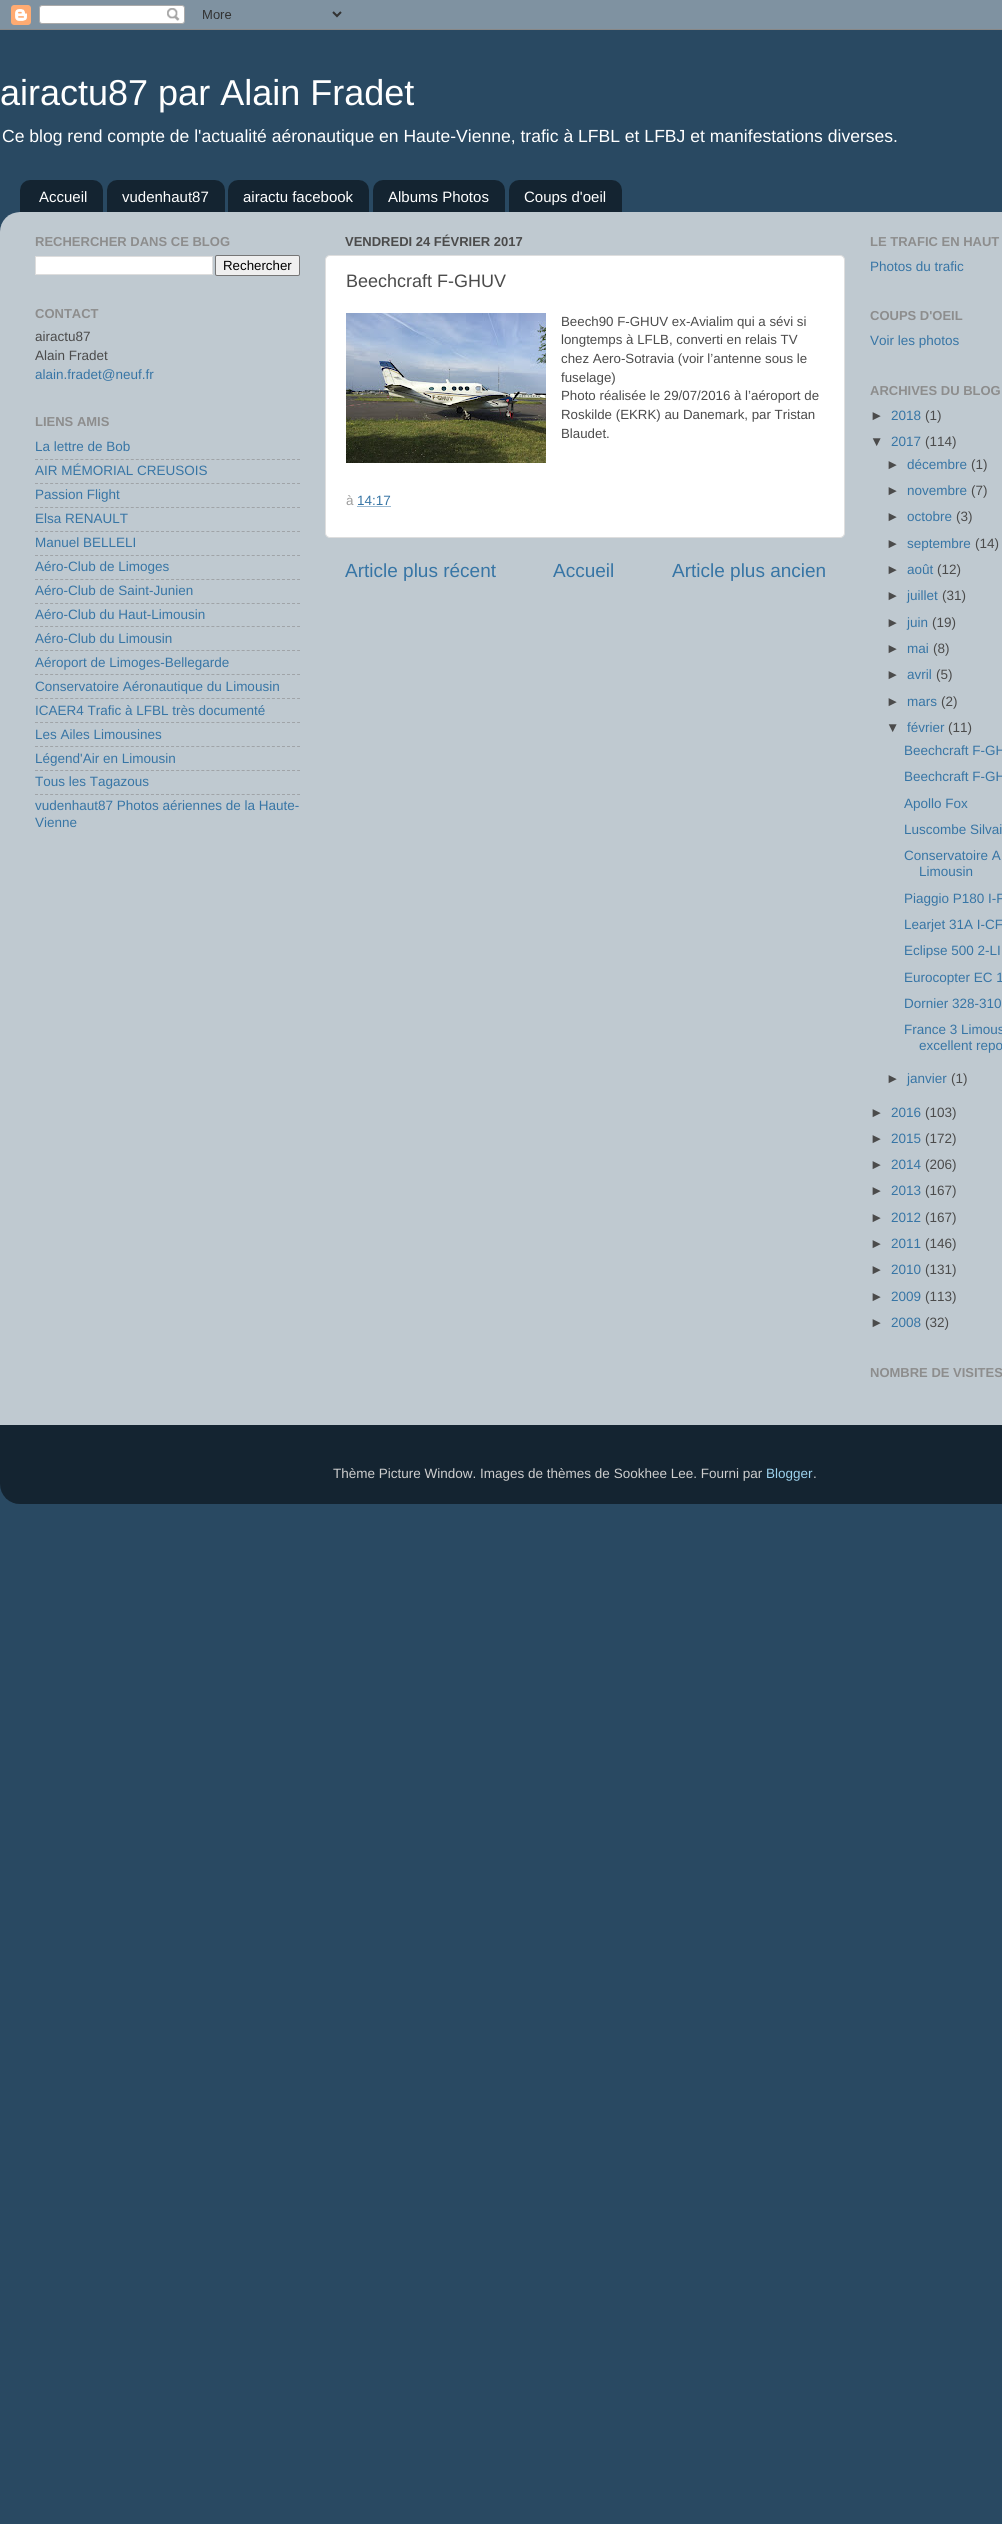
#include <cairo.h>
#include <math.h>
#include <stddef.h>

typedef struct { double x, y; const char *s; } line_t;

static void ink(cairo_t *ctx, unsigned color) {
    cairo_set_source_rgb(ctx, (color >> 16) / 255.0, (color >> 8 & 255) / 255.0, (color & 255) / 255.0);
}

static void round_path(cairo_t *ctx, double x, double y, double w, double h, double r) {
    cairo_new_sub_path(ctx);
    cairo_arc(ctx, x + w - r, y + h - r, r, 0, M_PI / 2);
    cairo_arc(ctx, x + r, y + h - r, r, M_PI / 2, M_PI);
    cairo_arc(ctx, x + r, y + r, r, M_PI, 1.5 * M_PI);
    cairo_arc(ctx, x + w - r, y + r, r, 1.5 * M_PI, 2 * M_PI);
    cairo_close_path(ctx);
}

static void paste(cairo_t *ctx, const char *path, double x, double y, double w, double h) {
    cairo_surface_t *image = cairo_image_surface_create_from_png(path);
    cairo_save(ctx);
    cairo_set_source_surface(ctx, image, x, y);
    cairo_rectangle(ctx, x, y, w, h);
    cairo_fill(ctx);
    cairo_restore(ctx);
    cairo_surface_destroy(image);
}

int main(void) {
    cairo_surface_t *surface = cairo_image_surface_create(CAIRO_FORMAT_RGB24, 1002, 2524);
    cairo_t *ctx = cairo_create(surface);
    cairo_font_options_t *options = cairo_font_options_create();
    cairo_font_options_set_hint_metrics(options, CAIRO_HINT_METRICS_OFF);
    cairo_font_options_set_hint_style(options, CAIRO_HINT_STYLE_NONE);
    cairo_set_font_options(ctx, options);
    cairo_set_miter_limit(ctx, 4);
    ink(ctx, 0x294962);
    cairo_paint(ctx);
    paste(ctx, "media/1.png", 0, 0, 1002, 30);
    cairo_select_font_face(ctx, "Liberation Sans", CAIRO_FONT_SLANT_NORMAL, CAIRO_FONT_WEIGHT_NORMAL);
    cairo_set_font_size(ctx, 36);
    ink(ctx, 0xFFFFFF);
    cairo_move_to(ctx, 0, 105);
    cairo_show_text(ctx, "airactu87 par Alain Fradet");
    cairo_set_font_size(ctx, 17.55);
    cairo_move_to(ctx, 2, 142);
    cairo_show_text(ctx, "Ce blog rend compte de l'actualité aéronautique en Haute-Vienne, trafic à LFBL et LFBJ et manifestations diverses.");
    paste(ctx, "media/2.png", 20, 180, 83, 32);
    cairo_set_font_size(ctx, 15);
    cairo_move_to(ctx, 39, 202);
    cairo_show_text(ctx, "Accueil");
    paste(ctx, "media/3.png", 107, 180, 118, 32);
    cairo_move_to(ctx, 122, 202);
    cairo_show_text(ctx, "vudenhaut87");
    paste(ctx, "media/4.png", 228, 180, 141, 32);
    cairo_move_to(ctx, 243, 202);
    cairo_show_text(ctx, "airactu facebook");
    paste(ctx, "media/5.png", 373, 180, 132, 32);
    cairo_move_to(ctx, 388, 202);
    cairo_show_text(ctx, "Albums Photos");
    paste(ctx, "media/6.png", 509, 180, 113, 32);
    cairo_move_to(ctx, 524, 202);
    cairo_show_text(ctx, "Coups d'oeil");
    paste(ctx, "media/7.png", 0, 212, 1002, 1213);
    cairo_select_font_face(ctx, "Liberation Sans", CAIRO_FONT_SLANT_NORMAL, CAIRO_FONT_WEIGHT_BOLD);
    cairo_set_font_size(ctx, 13);
    ink(ctx, 0x8D8D8D);
    cairo_move_to(ctx, 35, 246);
    cairo_show_text(ctx, "RECHERCHER DANS CE BLOG");
    ink(ctx, 0xFFFFFF);
    cairo_rectangle(ctx, 35.5, 256.5, 177, 18);
    cairo_fill_preserve(ctx);
    ink(ctx, 0xDDDDDD);
    cairo_set_line_width(ctx, 1);
    cairo_stroke(ctx);
    ink(ctx, 0xEFEFEF);
    round_path(ctx, 215.5, 255.5, 84, 20, 1.5);
    cairo_fill_preserve(ctx);
    ink(ctx, 0x767676);
    cairo_stroke(ctx);
    cairo_select_font_face(ctx, "Liberation Sans", CAIRO_FONT_SLANT_NORMAL, CAIRO_FONT_WEIGHT_NORMAL);
    cairo_set_font_size(ctx, 13.3);
    ink(ctx, 0x000000);
    cairo_move_to(ctx, 223, 270);
    cairo_show_text(ctx, "Rechercher");
    cairo_select_font_face(ctx, "Liberation Sans", CAIRO_FONT_SLANT_NORMAL, CAIRO_FONT_WEIGHT_BOLD);
    cairo_set_font_size(ctx, 13);
    ink(ctx, 0x8D8D8D);
    cairo_move_to(ctx, 35, 318);
    cairo_show_text(ctx, "CONTACT");
    cairo_select_font_face(ctx, "Liberation Sans", CAIRO_FONT_SLANT_NORMAL, CAIRO_FONT_WEIGHT_NORMAL);
    cairo_set_font_size(ctx, 13.5);
    ink(ctx, 0x4B4B4B);
    cairo_move_to(ctx, 35, 341);
    cairo_show_text(ctx, "airactu87");
    cairo_move_to(ctx, 35, 360);
    cairo_show_text(ctx, "Alain Fradet");
    ink(ctx, 0x3775A5);
    cairo_move_to(ctx, 35, 379);
    cairo_show_text(ctx, "alain.fradet@neuf.fr");
    cairo_select_font_face(ctx, "Liberation Sans", CAIRO_FONT_SLANT_NORMAL, CAIRO_FONT_WEIGHT_BOLD);
    cairo_set_font_size(ctx, 13);
    ink(ctx, 0x8D8D8D);
    cairo_move_to(ctx, 35, 426);
    cairo_show_text(ctx, "LIENS AMIS");
    cairo_select_font_face(ctx, "Liberation Sans", CAIRO_FONT_SLANT_NORMAL, CAIRO_FONT_WEIGHT_NORMAL);
    cairo_set_font_size(ctx, 13.5);
    ink(ctx, 0x3775A5);
    cairo_move_to(ctx, 35, 451);
    cairo_show_text(ctx, "La lettre de Bob");
    cairo_new_path(ctx);
    cairo_move_to(ctx, 35, 459.5);
    cairo_line_to(ctx, 300, 459.5);
    ink(ctx, 0xA0A4A8);
    cairo_set_dash(ctx, (double[]){3, 2.04}, 2, 0);
    cairo_stroke(ctx);
    ink(ctx, 0x3775A5);
    cairo_move_to(ctx, 35, 475);
    cairo_show_text(ctx, "AIR MÉMORIAL CREUSOIS");
    cairo_new_path(ctx);
    cairo_move_to(ctx, 35, 483.5);
    cairo_line_to(ctx, 300, 483.5);
    ink(ctx, 0xA0A4A8);
    cairo_stroke(ctx);
    ink(ctx, 0x3775A5);
    cairo_move_to(ctx, 35, 499);
    cairo_show_text(ctx, "Passion Flight");
    cairo_new_path(ctx);
    cairo_move_to(ctx, 35, 507.5);
    cairo_line_to(ctx, 300, 507.5);
    ink(ctx, 0xA0A4A8);
    cairo_stroke(ctx);
    ink(ctx, 0x3775A5);
    cairo_move_to(ctx, 35, 523);
    cairo_show_text(ctx, "Elsa RENAULT");
    cairo_new_path(ctx);
    cairo_move_to(ctx, 35, 531.5);
    cairo_line_to(ctx, 300, 531.5);
    ink(ctx, 0xA0A4A8);
    cairo_stroke(ctx);
    ink(ctx, 0x3775A5);
    cairo_move_to(ctx, 35, 547);
    cairo_show_text(ctx, "Manuel BELLELI");
    cairo_new_path(ctx);
    cairo_move_to(ctx, 35, 555.5);
    cairo_line_to(ctx, 300, 555.5);
    ink(ctx, 0xA0A4A8);
    cairo_stroke(ctx);
    ink(ctx, 0x3775A5);
    cairo_move_to(ctx, 35, 571);
    cairo_show_text(ctx, "Aéro-Club de Limoges");
    cairo_new_path(ctx);
    cairo_move_to(ctx, 35, 579.5);
    cairo_line_to(ctx, 300, 579.5);
    ink(ctx, 0xA0A4A8);
    cairo_stroke(ctx);
    ink(ctx, 0x3775A5);
    cairo_move_to(ctx, 35, 595);
    cairo_show_text(ctx, "Aéro-Club de Saint-Junien");
    cairo_new_path(ctx);
    cairo_move_to(ctx, 35, 603.5);
    cairo_line_to(ctx, 300, 603.5);
    ink(ctx, 0xA0A4A8);
    cairo_stroke(ctx);
    ink(ctx, 0x3775A5);
    cairo_move_to(ctx, 35, 619);
    cairo_show_text(ctx, "Aéro-Club du Haut-Limousin");
    cairo_new_path(ctx);
    cairo_move_to(ctx, 35, 626.5);
    cairo_line_to(ctx, 300, 626.5);
    ink(ctx, 0xA0A4A8);
    cairo_stroke(ctx);
    ink(ctx, 0x3775A5);
    cairo_move_to(ctx, 35, 643);
    cairo_show_text(ctx, "Aéro-Club du Limousin");
    cairo_new_path(ctx);
    cairo_move_to(ctx, 35, 650.5);
    cairo_line_to(ctx, 300, 650.5);
    ink(ctx, 0xA0A4A8);
    cairo_stroke(ctx);
    ink(ctx, 0x3775A5);
    cairo_move_to(ctx, 35, 667);
    cairo_show_text(ctx, "Aéroport de Limoges-Bellegarde");
    cairo_new_path(ctx);
    cairo_move_to(ctx, 35, 674.5);
    cairo_line_to(ctx, 300, 674.5);
    ink(ctx, 0xA0A4A8);
    cairo_stroke(ctx);
    ink(ctx, 0x3775A5);
    cairo_move_to(ctx, 35, 691);
    cairo_show_text(ctx, "Conservatoire Aéronautique du Limousin");
    cairo_new_path(ctx);
    cairo_move_to(ctx, 35, 698.5);
    cairo_line_to(ctx, 300, 698.5);
    ink(ctx, 0xA0A4A8);
    cairo_stroke(ctx);
    ink(ctx, 0x3775A5);
    cairo_move_to(ctx, 35, 715);
    cairo_show_text(ctx, "ICAER4 Trafic à LFBL très documenté");
    cairo_new_path(ctx);
    cairo_move_to(ctx, 35, 722.5);
    cairo_line_to(ctx, 300, 722.5);
    ink(ctx, 0xA0A4A8);
    cairo_stroke(ctx);
    ink(ctx, 0x3775A5);
    cairo_move_to(ctx, 35, 739);
    cairo_show_text(ctx, "Les Ailes Limousines");
    cairo_new_path(ctx);
    cairo_move_to(ctx, 35, 746.5);
    cairo_line_to(ctx, 300, 746.5);
    ink(ctx, 0xA0A4A8);
    cairo_stroke(ctx);
    ink(ctx, 0x3775A5);
    cairo_move_to(ctx, 35, 763);
    cairo_show_text(ctx, "Légend'Air en Limousin");
    cairo_new_path(ctx);
    cairo_move_to(ctx, 35, 770.5);
    cairo_line_to(ctx, 300, 770.5);
    ink(ctx, 0xA0A4A8);
    cairo_stroke(ctx);
    ink(ctx, 0x3775A5);
    cairo_move_to(ctx, 35, 786);
    cairo_show_text(ctx, "Tous les Tagazous");
    cairo_new_path(ctx);
    cairo_move_to(ctx, 35, 794.5);
    cairo_line_to(ctx, 300, 794.5);
    ink(ctx, 0xA0A4A8);
    cairo_stroke(ctx);
    ink(ctx, 0x3775A5);
    cairo_move_to(ctx, 35, 810);
    cairo_show_text(ctx, "vudenhaut87 Photos aériennes de la Haute-");
    cairo_move_to(ctx, 35, 827);
    cairo_show_text(ctx, "Vienne");
    cairo_select_font_face(ctx, "Liberation Sans", CAIRO_FONT_SLANT_NORMAL, CAIRO_FONT_WEIGHT_BOLD);
    cairo_set_font_size(ctx, 13);
    ink(ctx, 0x4B4B4B);
    cairo_move_to(ctx, 345, 246);
    cairo_show_text(ctx, "VENDREDI 24 FÉVRIER 2017");
    ink(ctx, 0xFFFFFF);
    round_path(ctx, 325.5, 255.5, 519, 282, 4.5);
    cairo_fill_preserve(ctx);
    ink(ctx, 0xDEDEDE);
    cairo_set_dash(ctx, NULL, 0, 0);
    cairo_stroke(ctx);
    cairo_select_font_face(ctx, "Liberation Sans", CAIRO_FONT_SLANT_NORMAL, CAIRO_FONT_WEIGHT_NORMAL);
    cairo_set_font_size(ctx, 18);
    ink(ctx, 0x4B4B4B);
    cairo_move_to(ctx, 346, 287);
    cairo_show_text(ctx, "Beechcraft F-GHUV");
    paste(ctx, "media/8.png", 346, 313, 200, 150);
    cairo_set_font_size(ctx, 13.3);
    {
        static const line_t items[] = {
            {561, 326, "Beech90 F-GHUV ex-Avialim qui a sévi si"},
            {561, 344, "longtemps à LFLB, converti en relais TV"},
            {561, 363, "chez Aero-Sotravia (voir l’antenne sous le"},
            {561, 382, "fuselage)"},
            {561, 400, "Photo réalisée le 29/07/2016 à l’aéroport de"},
            {561, 419, "Roskilde (EKRK) au Danemark, par Tristan"},
            {561, 438, "Blaudet."},
        };
        for (size_t i = 0; i < sizeof items / sizeof *items; i++) {
            cairo_move_to(ctx, items[i].x, items[i].y);
            cairo_show_text(ctx, items[i].s);
        }
    }
    cairo_set_font_size(ctx, 13.5);
    ink(ctx, 0x9D9D9D);
    cairo_move_to(ctx, 346, 505);
    cairo_show_text(ctx, "à");
    ink(ctx, 0x3775A5);
    cairo_move_to(ctx, 357, 505);
    cairo_show_text(ctx, "14:17");
    cairo_new_path(ctx);
    cairo_move_to(ctx, 357.5, 506.5);
    cairo_line_to(ctx, 391, 506.5);
    cairo_set_dash(ctx, (double[]){1, 1}, 2, 0);
    cairo_stroke(ctx);
    cairo_set_font_size(ctx, 19);
    {
        static const line_t items[] = {
            {345, 577, "Article plus récent"},
            {553, 577, "Accueil"},
            {672, 577, "Article plus ancien"},
        };
        for (size_t i = 0; i < sizeof items / sizeof *items; i++) {
            cairo_move_to(ctx, items[i].x, items[i].y);
            cairo_show_text(ctx, items[i].s);
        }
    }
    cairo_select_font_face(ctx, "Liberation Sans", CAIRO_FONT_SLANT_NORMAL, CAIRO_FONT_WEIGHT_BOLD);
    cairo_set_font_size(ctx, 13);
    ink(ctx, 0x8D8D8D);
    cairo_move_to(ctx, 870, 246);
    cairo_show_text(ctx, "LE TRAFIC EN HAUT");
    cairo_select_font_face(ctx, "Liberation Sans", CAIRO_FONT_SLANT_NORMAL, CAIRO_FONT_WEIGHT_NORMAL);
    cairo_set_font_size(ctx, 13.5);
    ink(ctx, 0x3775A5);
    cairo_move_to(ctx, 870, 271);
    cairo_show_text(ctx, "Photos du trafic");
    cairo_select_font_face(ctx, "Liberation Sans", CAIRO_FONT_SLANT_NORMAL, CAIRO_FONT_WEIGHT_BOLD);
    cairo_set_font_size(ctx, 13);
    ink(ctx, 0x8D8D8D);
    cairo_move_to(ctx, 870, 320);
    cairo_show_text(ctx, "COUPS D'OEIL");
    cairo_select_font_face(ctx, "Liberation Sans", CAIRO_FONT_SLANT_NORMAL, CAIRO_FONT_WEIGHT_NORMAL);
    cairo_set_font_size(ctx, 13.5);
    ink(ctx, 0x3775A5);
    cairo_move_to(ctx, 870, 345);
    cairo_show_text(ctx, "Voir les photos");
    cairo_select_font_face(ctx, "Liberation Sans", CAIRO_FONT_SLANT_NORMAL, CAIRO_FONT_WEIGHT_BOLD);
    cairo_set_font_size(ctx, 13);
    ink(ctx, 0x8D8D8D);
    cairo_move_to(ctx, 870, 395);
    cairo_show_text(ctx, "ARCHIVES DU BLOG");
    cairo_select_font_face(ctx, "Liberation Sans", CAIRO_FONT_SLANT_NORMAL, CAIRO_FONT_WEIGHT_NORMAL);
    cairo_set_font_size(ctx, 13.5);
    ink(ctx, 0x4B4B4B);
    cairo_move_to(ctx, 870, 420);
    cairo_show_text(ctx, "►");
    ink(ctx, 0x3775A5);
    cairo_move_to(ctx, 891, 420);
    cairo_show_text(ctx, "2018");
    ink(ctx, 0x4B4B4B);
    cairo_move_to(ctx, 925, 420);
    cairo_show_text(ctx, "(1)");
    cairo_move_to(ctx, 870, 446);
    cairo_show_text(ctx, "▼");
    ink(ctx, 0x3775A5);
    cairo_move_to(ctx, 891, 446);
    cairo_show_text(ctx, "2017");
    ink(ctx, 0x4B4B4B);
    cairo_move_to(ctx, 925, 446);
    cairo_show_text(ctx, "(114)");
    cairo_move_to(ctx, 886, 469);
    cairo_show_text(ctx, "►");
    ink(ctx, 0x3775A5);
    cairo_move_to(ctx, 907, 469);
    cairo_show_text(ctx, "décembre");
    ink(ctx, 0x4B4B4B);
    cairo_move_to(ctx, 971, 469);
    cairo_show_text(ctx, "(1)");
    cairo_move_to(ctx, 886, 495);
    cairo_show_text(ctx, "►");
    ink(ctx, 0x3775A5);
    cairo_move_to(ctx, 907, 495);
    cairo_show_text(ctx, "novembre");
    ink(ctx, 0x4B4B4B);
    cairo_move_to(ctx, 971, 495);
    cairo_show_text(ctx, "(7)");
    cairo_move_to(ctx, 886, 521);
    cairo_show_text(ctx, "►");
    ink(ctx, 0x3775A5);
    cairo_move_to(ctx, 907, 521);
    cairo_show_text(ctx, "octobre");
    ink(ctx, 0x4B4B4B);
    cairo_move_to(ctx, 956, 521);
    cairo_show_text(ctx, "(3)");
    cairo_move_to(ctx, 886, 548);
    cairo_show_text(ctx, "►");
    ink(ctx, 0x3775A5);
    cairo_move_to(ctx, 907, 548);
    cairo_show_text(ctx, "septembre");
    ink(ctx, 0x4B4B4B);
    cairo_move_to(ctx, 975, 548);
    cairo_show_text(ctx, "(14)");
    cairo_move_to(ctx, 886, 574);
    cairo_show_text(ctx, "►");
    ink(ctx, 0x3775A5);
    cairo_move_to(ctx, 907, 574);
    cairo_show_text(ctx, "août");
    ink(ctx, 0x4B4B4B);
    cairo_move_to(ctx, 937, 574);
    cairo_show_text(ctx, "(12)");
    cairo_move_to(ctx, 886, 600);
    cairo_show_text(ctx, "►");
    ink(ctx, 0x3775A5);
    cairo_move_to(ctx, 907, 600);
    cairo_show_text(ctx, "juillet");
    ink(ctx, 0x4B4B4B);
    cairo_move_to(ctx, 942, 600);
    cairo_show_text(ctx, "(31)");
    cairo_move_to(ctx, 886, 627);
    cairo_show_text(ctx, "►");
    ink(ctx, 0x3775A5);
    cairo_move_to(ctx, 907, 627);
    cairo_show_text(ctx, "juin");
    ink(ctx, 0x4B4B4B);
    cairo_move_to(ctx, 932, 627);
    cairo_show_text(ctx, "(19)");
    cairo_move_to(ctx, 886, 653);
    cairo_show_text(ctx, "►");
    ink(ctx, 0x3775A5);
    cairo_move_to(ctx, 907, 653);
    cairo_show_text(ctx, "mai");
    ink(ctx, 0x4B4B4B);
    cairo_move_to(ctx, 933, 653);
    cairo_show_text(ctx, "(8)");
    cairo_move_to(ctx, 886, 679);
    cairo_show_text(ctx, "►");
    ink(ctx, 0x3775A5);
    cairo_move_to(ctx, 907, 679);
    cairo_show_text(ctx, "avril");
    ink(ctx, 0x4B4B4B);
    cairo_move_to(ctx, 936, 679);
    cairo_show_text(ctx, "(5)");
    cairo_move_to(ctx, 886, 706);
    cairo_show_text(ctx, "►");
    ink(ctx, 0x3775A5);
    cairo_move_to(ctx, 907, 706);
    cairo_show_text(ctx, "mars");
    ink(ctx, 0x4B4B4B);
    cairo_move_to(ctx, 941, 706);
    cairo_show_text(ctx, "(2)");
    cairo_move_to(ctx, 886, 732);
    cairo_show_text(ctx, "▼");
    ink(ctx, 0x3775A5);
    cairo_move_to(ctx, 907, 732);
    cairo_show_text(ctx, "février");
    ink(ctx, 0x4B4B4B);
    cairo_move_to(ctx, 948, 732);
    cairo_show_text(ctx, "(11)");
    ink(ctx, 0x3775A5);
    {
        static const line_t items[] = {
            {904, 755, "Beechcraft F-GH"},
            {904, 781, "Beechcraft F-GH"},
            {904, 808, "Apollo Fox"},
            {904, 834, "Luscombe Silvai"},
            {904, 860, "Conservatoire A"},
            {919, 876, "Limousin"},
            {904, 903, "Piaggio P180 I-F"},
            {904, 929, "Learjet 31A I-CF"},
            {904, 955, "Eclipse 500 2-LI"},
            {904, 982, "Eurocopter EC 1"},
            {904, 1008, "Dornier 328-310"},
            {904, 1034, "France 3 Limous"},
            {919, 1050, "excellent repo"},
        };
        for (size_t i = 0; i < sizeof items / sizeof *items; i++) {
            cairo_move_to(ctx, items[i].x, items[i].y);
            cairo_show_text(ctx, items[i].s);
        }
    }
    ink(ctx, 0x4B4B4B);
    cairo_move_to(ctx, 886, 1083);
    cairo_show_text(ctx, "►");
    ink(ctx, 0x3775A5);
    cairo_move_to(ctx, 907, 1083);
    cairo_show_text(ctx, "janvier");
    ink(ctx, 0x4B4B4B);
    cairo_move_to(ctx, 951, 1083);
    cairo_show_text(ctx, "(1)");
    cairo_move_to(ctx, 870, 1117);
    cairo_show_text(ctx, "►");
    ink(ctx, 0x3775A5);
    cairo_move_to(ctx, 891, 1117);
    cairo_show_text(ctx, "2016");
    ink(ctx, 0x4B4B4B);
    cairo_move_to(ctx, 925, 1117);
    cairo_show_text(ctx, "(103)");
    cairo_move_to(ctx, 870, 1143);
    cairo_show_text(ctx, "►");
    ink(ctx, 0x3775A5);
    cairo_move_to(ctx, 891, 1143);
    cairo_show_text(ctx, "2015");
    ink(ctx, 0x4B4B4B);
    cairo_move_to(ctx, 925, 1143);
    cairo_show_text(ctx, "(172)");
    cairo_move_to(ctx, 870, 1169);
    cairo_show_text(ctx, "►");
    ink(ctx, 0x3775A5);
    cairo_move_to(ctx, 891, 1169);
    cairo_show_text(ctx, "2014");
    ink(ctx, 0x4B4B4B);
    cairo_move_to(ctx, 925, 1169);
    cairo_show_text(ctx, "(206)");
    cairo_move_to(ctx, 870, 1195);
    cairo_show_text(ctx, "►");
    ink(ctx, 0x3775A5);
    cairo_move_to(ctx, 891, 1195);
    cairo_show_text(ctx, "2013");
    ink(ctx, 0x4B4B4B);
    cairo_move_to(ctx, 925, 1195);
    cairo_show_text(ctx, "(167)");
    cairo_move_to(ctx, 870, 1222);
    cairo_show_text(ctx, "►");
    ink(ctx, 0x3775A5);
    cairo_move_to(ctx, 891, 1222);
    cairo_show_text(ctx, "2012");
    ink(ctx, 0x4B4B4B);
    cairo_move_to(ctx, 925, 1222);
    cairo_show_text(ctx, "(167)");
    cairo_move_to(ctx, 870, 1248);
    cairo_show_text(ctx, "►");
    ink(ctx, 0x3775A5);
    cairo_move_to(ctx, 891, 1248);
    cairo_show_text(ctx, "2011");
    ink(ctx, 0x4B4B4B);
    cairo_move_to(ctx, 925, 1248);
    cairo_show_text(ctx, "(146)");
    cairo_move_to(ctx, 870, 1274);
    cairo_show_text(ctx, "►");
    ink(ctx, 0x3775A5);
    cairo_move_to(ctx, 891, 1274);
    cairo_show_text(ctx, "2010");
    ink(ctx, 0x4B4B4B);
    cairo_move_to(ctx, 925, 1274);
    cairo_show_text(ctx, "(131)");
    cairo_move_to(ctx, 870, 1301);
    cairo_show_text(ctx, "►");
    ink(ctx, 0x3775A5);
    cairo_move_to(ctx, 891, 1301);
    cairo_show_text(ctx, "2009");
    ink(ctx, 0x4B4B4B);
    cairo_move_to(ctx, 925, 1301);
    cairo_show_text(ctx, "(113)");
    cairo_move_to(ctx, 870, 1327);
    cairo_show_text(ctx, "►");
    ink(ctx, 0x3775A5);
    cairo_move_to(ctx, 891, 1327);
    cairo_show_text(ctx, "2008");
    ink(ctx, 0x4B4B4B);
    cairo_move_to(ctx, 925, 1327);
    cairo_show_text(ctx, "(32)");
    cairo_select_font_face(ctx, "Liberation Sans", CAIRO_FONT_SLANT_NORMAL, CAIRO_FONT_WEIGHT_BOLD);
    cairo_set_font_size(ctx, 13);
    ink(ctx, 0x8D8D8D);
    cairo_move_to(ctx, 870, 1377);
    cairo_show_text(ctx, "NOMBRE DE VISITES");
    paste(ctx, "media/9.png", 0, 1425, 1002, 79);
    cairo_select_font_face(ctx, "Liberation Sans", CAIRO_FONT_SLANT_NORMAL, CAIRO_FONT_WEIGHT_NORMAL);
    cairo_set_font_size(ctx, 13.5);
    ink(ctx, 0xCECECE);
    cairo_move_to(ctx, 333, 1478);
    cairo_show_text(ctx, "Thème Picture Window. Images de thèmes de Sookhee Lee. Fourni par");
    ink(ctx, 0x9DD3EE);
    cairo_move_to(ctx, 766, 1478);
    cairo_show_text(ctx, "Blogger");
    ink(ctx, 0xCECECE);
    cairo_move_to(ctx, 813, 1478);
    cairo_show_text(ctx, ".");
    cairo_surface_write_to_png(surface, "image.png");
    cairo_font_options_destroy(options);
    cairo_destroy(ctx);
    cairo_surface_destroy(surface);
    return 0;
}
